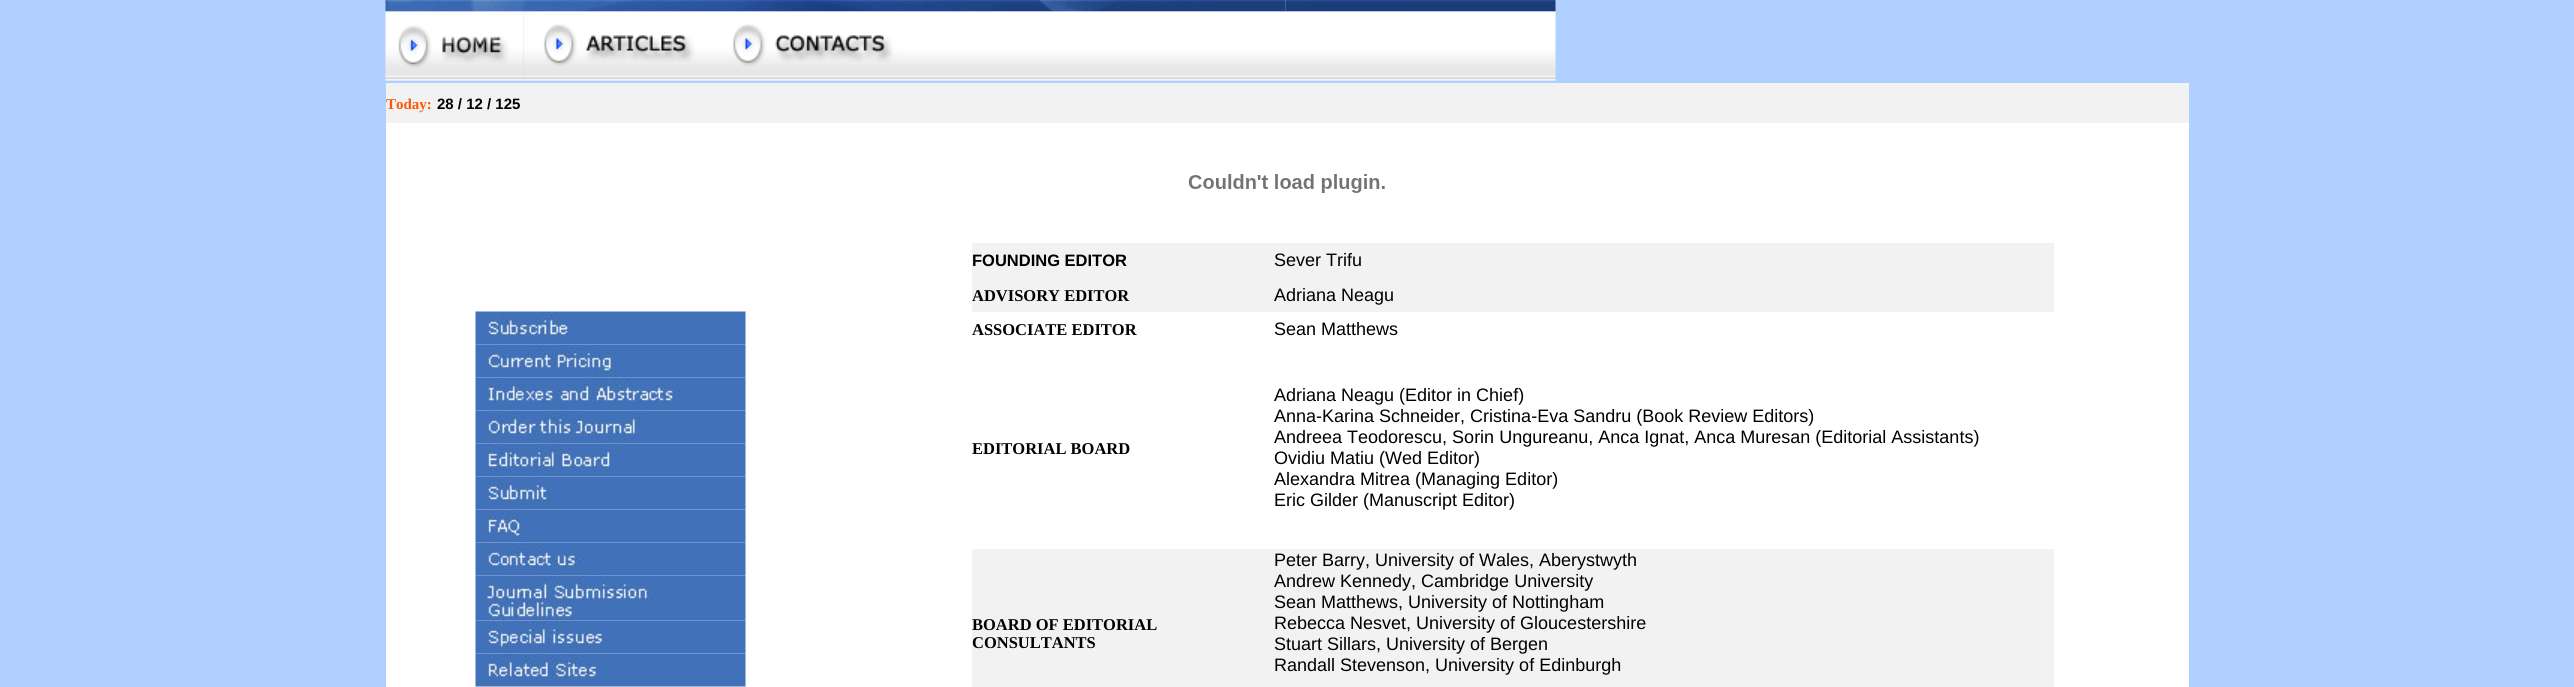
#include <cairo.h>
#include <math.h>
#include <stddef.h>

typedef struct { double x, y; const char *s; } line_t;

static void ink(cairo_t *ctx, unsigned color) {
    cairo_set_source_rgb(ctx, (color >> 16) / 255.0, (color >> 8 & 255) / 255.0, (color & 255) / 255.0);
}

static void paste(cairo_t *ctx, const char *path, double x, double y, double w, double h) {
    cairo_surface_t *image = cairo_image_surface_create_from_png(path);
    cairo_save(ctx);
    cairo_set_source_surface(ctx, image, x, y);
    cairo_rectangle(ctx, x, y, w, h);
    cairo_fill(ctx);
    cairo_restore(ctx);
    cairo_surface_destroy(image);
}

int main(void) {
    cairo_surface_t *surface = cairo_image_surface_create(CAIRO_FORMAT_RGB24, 2574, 687);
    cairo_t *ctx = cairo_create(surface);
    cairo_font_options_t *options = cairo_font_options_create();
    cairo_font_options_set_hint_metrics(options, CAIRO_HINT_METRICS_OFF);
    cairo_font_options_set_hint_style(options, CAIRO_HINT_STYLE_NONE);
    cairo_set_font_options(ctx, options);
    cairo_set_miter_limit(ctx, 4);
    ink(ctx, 0xB0D0FF);
    cairo_paint(ctx);
    paste(ctx, "media/1.png", 385, 0, 901, 12);
    paste(ctx, "media/2.png", 1285, 0, 271, 12);
    paste(ctx, "media/3.png", 385, 11, 139, 70);
    paste(ctx, "media/4.png", 523, 11, 182, 70);
    paste(ctx, "media/5.png", 705, 11, 201, 70);
    paste(ctx, "media/6.png", 906, 11, 650, 70);
    ink(ctx, 0xF2F2F2);
    cairo_rectangle(ctx, 386, 83, 1803, 40);
    cairo_fill(ctx);
    cairo_select_font_face(ctx, "Liberation Serif", CAIRO_FONT_SLANT_NORMAL, CAIRO_FONT_WEIGHT_BOLD);
    cairo_set_font_size(ctx, 15);
    ink(ctx, 0xFF5604);
    cairo_move_to(ctx, 386, 109);
    cairo_show_text(ctx, "Today:");
    cairo_select_font_face(ctx, "Liberation Sans", CAIRO_FONT_SLANT_NORMAL, CAIRO_FONT_WEIGHT_BOLD);
    ink(ctx, 0x000000);
    cairo_move_to(ctx, 437, 109);
    cairo_show_text(ctx, "28 / 12 / 125");
    ink(ctx, 0xFFFFFF);
    cairo_rectangle(ctx, 386, 123, 1803, 564);
    cairo_fill(ctx);
    paste(ctx, "media/7.png", 1188, 174, 197, 19);
    paste(ctx, "media/8.png", 475, 311, 271, 34);
    paste(ctx, "media/9.png", 475, 344, 271, 34);
    paste(ctx, "media/10.png", 475, 377, 271, 34);
    paste(ctx, "media/11.png", 475, 410, 271, 34);
    paste(ctx, "media/12.png", 475, 443, 271, 34);
    paste(ctx, "media/13.png", 475, 476, 271, 34);
    paste(ctx, "media/14.png", 475, 509, 271, 34);
    paste(ctx, "media/15.png", 475, 542, 271, 34);
    paste(ctx, "media/16.png", 475, 575, 271, 46);
    paste(ctx, "media/17.png", 475, 620, 271, 34);
    paste(ctx, "media/18.png", 475, 653, 271, 34);
    ink(ctx, 0xF2F2F2);
    cairo_rectangle(ctx, 972, 243, 1082, 35);
    cairo_fill(ctx);
    cairo_set_font_size(ctx, 16.5);
    ink(ctx, 0x000000);
    cairo_move_to(ctx, 972, 266);
    cairo_show_text(ctx, "FOUNDING EDITOR");
    cairo_select_font_face(ctx, "Liberation Sans", CAIRO_FONT_SLANT_NORMAL, CAIRO_FONT_WEIGHT_NORMAL);
    cairo_set_font_size(ctx, 18);
    cairo_move_to(ctx, 1274, 266);
    cairo_show_text(ctx, "Sever Trifu");
    ink(ctx, 0xF2F2F2);
    cairo_rectangle(ctx, 972, 278, 1082, 34);
    cairo_fill(ctx);
    cairo_select_font_face(ctx, "Liberation Serif", CAIRO_FONT_SLANT_NORMAL, CAIRO_FONT_WEIGHT_BOLD);
    cairo_set_font_size(ctx, 16.5);
    ink(ctx, 0x000000);
    cairo_move_to(ctx, 972, 301);
    cairo_show_text(ctx, "ADVISORY EDITOR");
    cairo_select_font_face(ctx, "Liberation Sans", CAIRO_FONT_SLANT_NORMAL, CAIRO_FONT_WEIGHT_NORMAL);
    cairo_set_font_size(ctx, 18);
    cairo_move_to(ctx, 1274, 301);
    cairo_show_text(ctx, "Adriana Neagu");
    cairo_select_font_face(ctx, "Liberation Serif", CAIRO_FONT_SLANT_NORMAL, CAIRO_FONT_WEIGHT_BOLD);
    cairo_set_font_size(ctx, 16.5);
    cairo_move_to(ctx, 972, 335);
    cairo_show_text(ctx, "ASSOCIATE EDITOR");
    cairo_select_font_face(ctx, "Liberation Sans", CAIRO_FONT_SLANT_NORMAL, CAIRO_FONT_WEIGHT_NORMAL);
    cairo_set_font_size(ctx, 18);
    cairo_move_to(ctx, 1274, 335);
    cairo_show_text(ctx, "Sean Matthews");
    cairo_select_font_face(ctx, "Liberation Serif", CAIRO_FONT_SLANT_NORMAL, CAIRO_FONT_WEIGHT_BOLD);
    cairo_set_font_size(ctx, 16.5);
    cairo_move_to(ctx, 972, 454);
    cairo_show_text(ctx, "EDITORIAL BOARD");
    cairo_select_font_face(ctx, "Liberation Sans", CAIRO_FONT_SLANT_NORMAL, CAIRO_FONT_WEIGHT_NORMAL);
    cairo_set_font_size(ctx, 18);
    {
        static const line_t items[] = {
            {1274, 401, "Adriana Neagu (Editor in Chief)"},
            {1274, 422, "Anna-Karina Schneider, Cristina-Eva Sandru (Book Review Editors)"},
            {1274, 443, "Andreea Teodorescu, Sorin Ungureanu, Anca Ignat, Anca Muresan (Editorial Assistants)"},
            {1274, 464, "Ovidiu Matiu (Wed Editor)"},
            {1274, 485, "Alexandra Mitrea (Managing Editor)"},
            {1274, 506, "Eric Gilder (Manuscript Editor)"},
        };
        for (size_t i = 0; i < sizeof items / sizeof *items; i++) {
            cairo_move_to(ctx, items[i].x, items[i].y);
            cairo_show_text(ctx, items[i].s);
        }
    }
    ink(ctx, 0xF2F2F2);
    cairo_rectangle(ctx, 972, 549, 1082, 138);
    cairo_fill(ctx);
    cairo_select_font_face(ctx, "Liberation Serif", CAIRO_FONT_SLANT_NORMAL, CAIRO_FONT_WEIGHT_BOLD);
    cairo_set_font_size(ctx, 16.5);
    ink(ctx, 0x000000);
    cairo_move_to(ctx, 972, 630);
    cairo_show_text(ctx, "BOARD OF EDITORIAL");
    cairo_move_to(ctx, 972, 648);
    cairo_show_text(ctx, "CONSULTANTS");
    cairo_select_font_face(ctx, "Liberation Sans", CAIRO_FONT_SLANT_NORMAL, CAIRO_FONT_WEIGHT_NORMAL);
    cairo_set_font_size(ctx, 18);
    {
        static const line_t items[] = {
            {1274, 566, "Peter Barry, University of Wales, Aberystwyth"},
            {1274, 587, "Andrew Kennedy, Cambridge University"},
            {1274, 608, "Sean Matthews, University of Nottingham"},
            {1274, 629, "Rebecca Nesvet, University of Gloucestershire"},
            {1274, 650, "Stuart Sillars, University of Bergen"},
            {1274, 671, "Randall Stevenson, University of Edinburgh"},
        };
        for (size_t i = 0; i < sizeof items / sizeof *items; i++) {
            cairo_move_to(ctx, items[i].x, items[i].y);
            cairo_show_text(ctx, items[i].s);
        }
    }
    cairo_surface_write_to_png(surface, "image.png");
    cairo_font_options_destroy(options);
    cairo_destroy(ctx);
    cairo_surface_destroy(surface);
    return 0;
}
